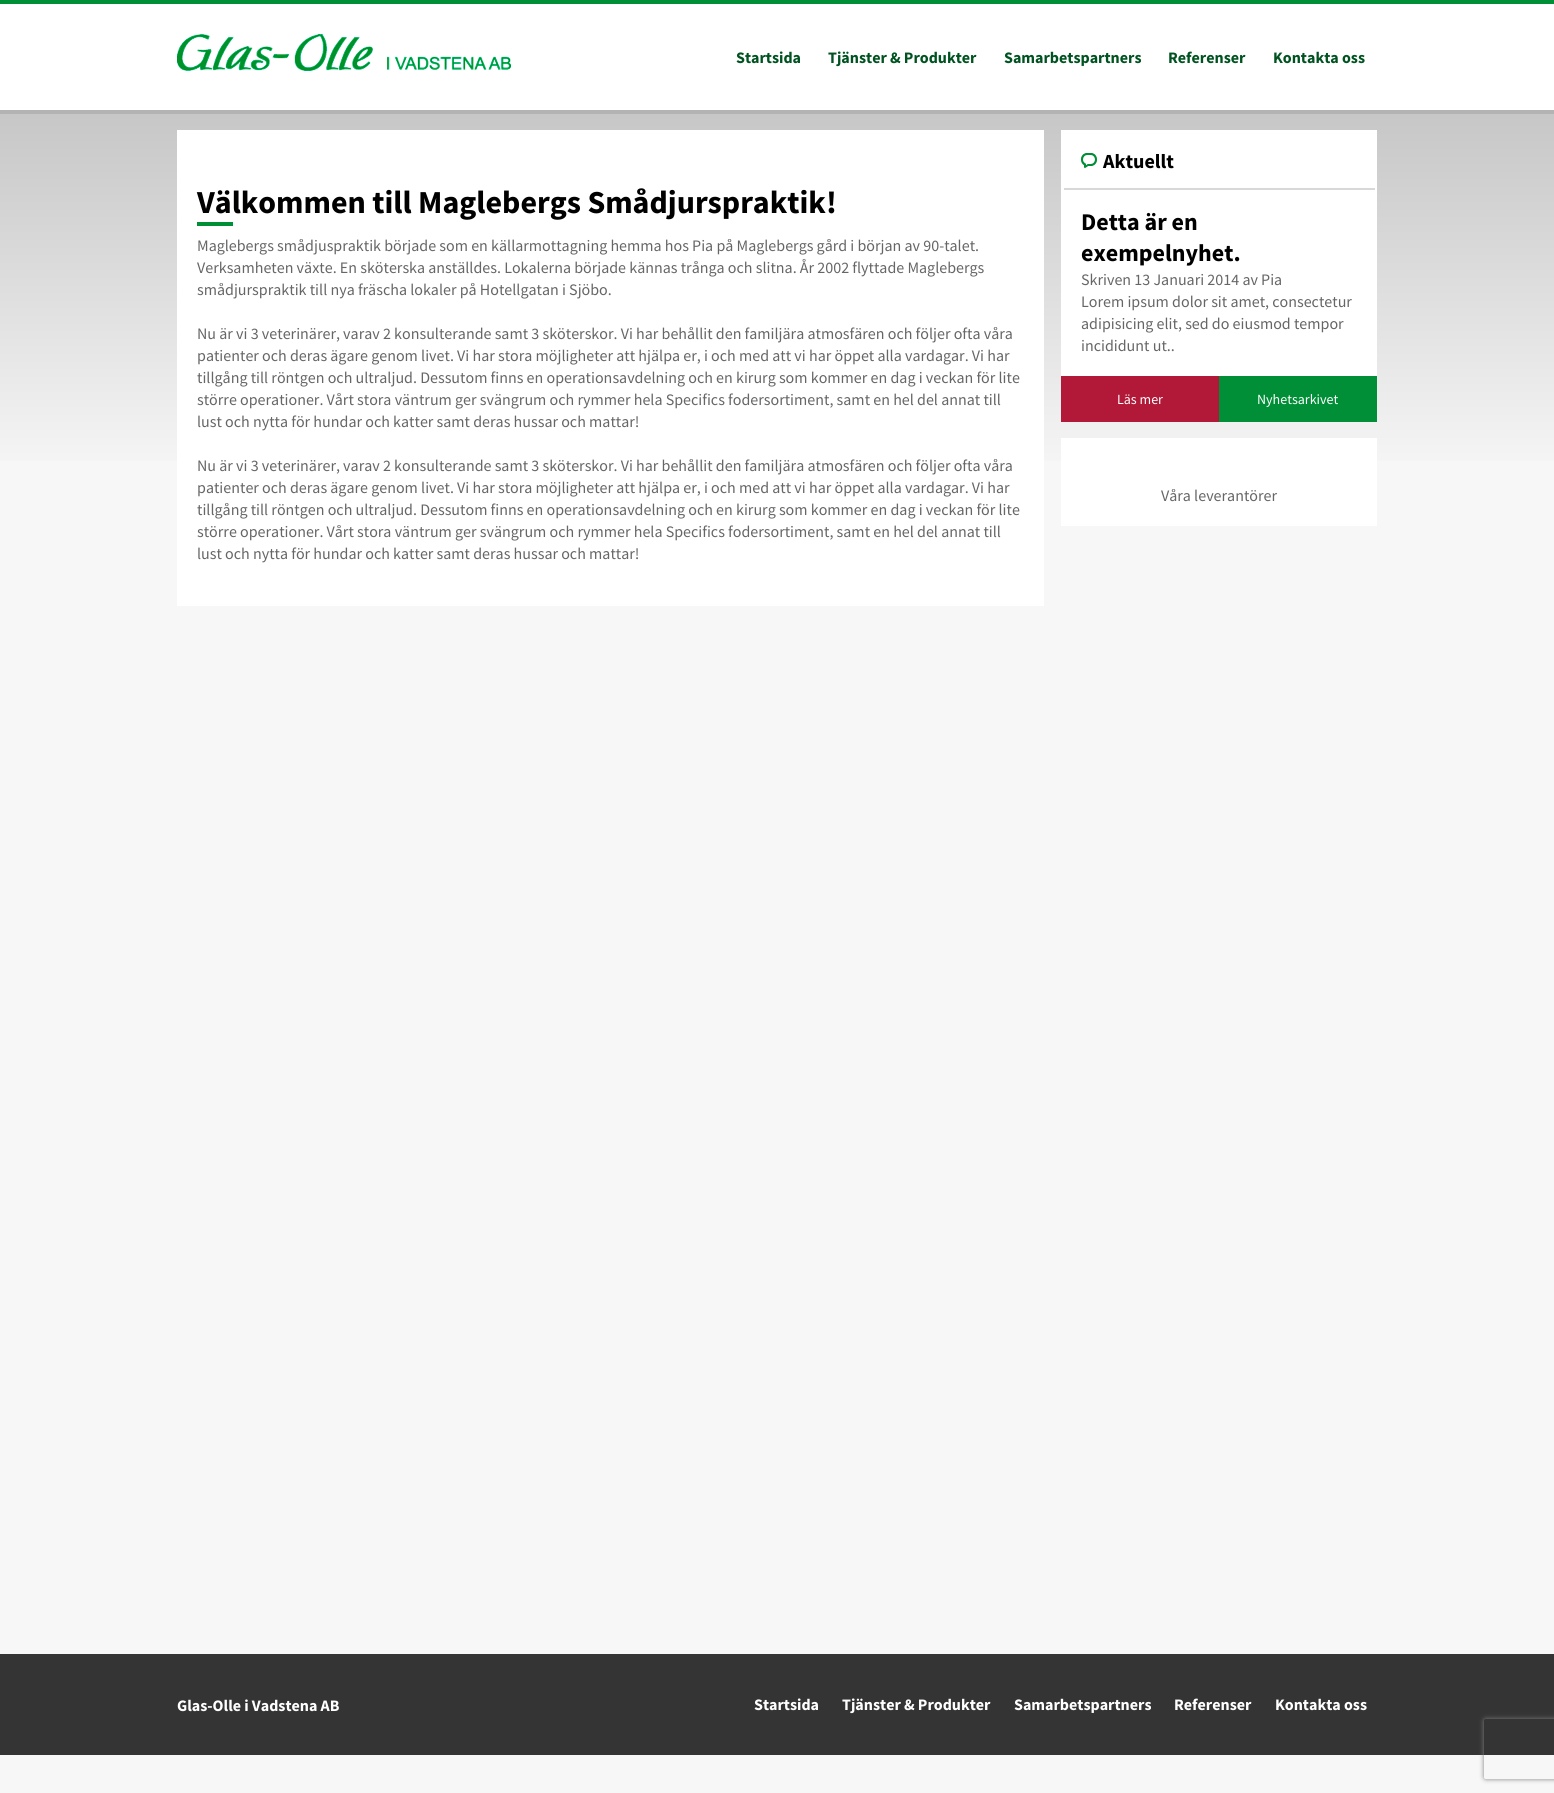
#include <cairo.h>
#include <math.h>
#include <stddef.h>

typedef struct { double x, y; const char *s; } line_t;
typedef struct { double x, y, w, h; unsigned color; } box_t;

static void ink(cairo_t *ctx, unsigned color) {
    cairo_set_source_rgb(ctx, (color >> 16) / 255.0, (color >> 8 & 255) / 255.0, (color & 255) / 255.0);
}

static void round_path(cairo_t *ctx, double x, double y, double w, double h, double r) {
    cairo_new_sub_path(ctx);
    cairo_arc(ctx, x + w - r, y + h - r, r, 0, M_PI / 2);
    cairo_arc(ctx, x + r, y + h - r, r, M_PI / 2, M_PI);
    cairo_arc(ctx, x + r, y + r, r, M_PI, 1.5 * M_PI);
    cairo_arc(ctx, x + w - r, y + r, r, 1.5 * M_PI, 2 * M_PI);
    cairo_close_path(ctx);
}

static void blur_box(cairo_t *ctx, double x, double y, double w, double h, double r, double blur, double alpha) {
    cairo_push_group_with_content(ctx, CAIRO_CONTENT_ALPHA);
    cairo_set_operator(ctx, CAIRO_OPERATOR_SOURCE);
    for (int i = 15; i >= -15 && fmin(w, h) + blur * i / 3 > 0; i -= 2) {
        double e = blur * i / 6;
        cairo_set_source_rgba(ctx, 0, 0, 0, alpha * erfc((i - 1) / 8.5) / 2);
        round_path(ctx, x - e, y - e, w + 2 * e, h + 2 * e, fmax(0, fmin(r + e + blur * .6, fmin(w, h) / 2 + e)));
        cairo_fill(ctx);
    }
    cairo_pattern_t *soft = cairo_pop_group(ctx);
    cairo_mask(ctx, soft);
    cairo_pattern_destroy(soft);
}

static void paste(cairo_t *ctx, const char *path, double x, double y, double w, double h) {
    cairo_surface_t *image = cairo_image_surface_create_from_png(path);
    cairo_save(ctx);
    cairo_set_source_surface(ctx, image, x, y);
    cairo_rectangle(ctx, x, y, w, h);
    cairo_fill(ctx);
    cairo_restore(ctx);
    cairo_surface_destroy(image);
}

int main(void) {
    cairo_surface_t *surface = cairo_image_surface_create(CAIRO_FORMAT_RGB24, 1554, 1793);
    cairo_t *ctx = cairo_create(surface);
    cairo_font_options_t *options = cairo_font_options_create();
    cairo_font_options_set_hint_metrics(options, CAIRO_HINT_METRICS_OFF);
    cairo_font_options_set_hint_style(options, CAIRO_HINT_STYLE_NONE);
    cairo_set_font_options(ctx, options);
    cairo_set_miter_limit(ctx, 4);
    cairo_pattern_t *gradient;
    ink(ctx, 0xF7F7F7);
    cairo_paint(ctx);
    {
        static const box_t items[] = {
            {0, 4, 1554, 106, 0xFFFFFF},
            {0, 0, 1554, 4, 0x008F37},
            {0, 110, 1554, 4, 0xB3B3B3},
        };
        for (size_t i = 0; i < sizeof items / sizeof *items; i++) {
            ink(ctx, items[i].color);
            cairo_rectangle(ctx, items[i].x, items[i].y, items[i].w, items[i].h);
            cairo_fill(ctx);
        }
    }
    paste(ctx, "media/1.png", 177, 34, 334, 37);
    cairo_select_font_face(ctx, "Source Sans Pro", CAIRO_FONT_SLANT_NORMAL, CAIRO_FONT_WEIGHT_BOLD);
    cairo_set_font_size(ctx, 16);
    ink(ctx, 0x005320);
    {
        static const line_t items[] = {
            {736, 63, "Startsida"},
            {828, 63, "Tjänster & Produkter"},
            {1004, 63, "Samarbetspartners"},
            {1168, 63, "Referenser"},
            {1273, 63, "Kontakta oss"},
        };
        for (size_t i = 0; i < sizeof items / sizeof *items; i++) {
            cairo_move_to(ctx, items[i].x, items[i].y);
            cairo_show_text(ctx, items[i].s);
        }
    }
    gradient = cairo_pattern_create_linear(777, 114, 777, 714);
    cairo_pattern_add_color_stop_rgba(gradient, 0, 0.118, 0.341, 0.6, 1);
    cairo_pattern_add_color_stop_rgba(gradient, 0, 0.125, 0.486, 0.792, 1);
    cairo_pattern_add_color_stop_rgba(gradient, 0, 0.78, 0.78, 0.78, 1);
    cairo_pattern_add_color_stop_rgba(gradient, 0.61, 0.969, 0.969, 0.969, 1);
    cairo_set_source(ctx, gradient);
    cairo_pattern_destroy(gradient);
    cairo_rectangle(ctx, 0, 114, 1554, 347);
    cairo_fill(ctx);
    ink(ctx, 0xFFFFFF);
    cairo_rectangle(ctx, 177, 130, 867, 476);
    cairo_fill(ctx);
    cairo_set_font_size(ctx, 32);
    ink(ctx, 0x000000);
    cairo_move_to(ctx, 197, 213);
    cairo_show_text(ctx, "Välkommen till Maglebergs Smådjurspraktik!");
    ink(ctx, 0x008F37);
    cairo_rectangle(ctx, 197, 222, 36, 4);
    cairo_fill(ctx);
    cairo_select_font_face(ctx, "Source Sans Pro", CAIRO_FONT_SLANT_NORMAL, CAIRO_FONT_WEIGHT_NORMAL);
    cairo_set_font_size(ctx, 16);
    ink(ctx, 0x666666);
    {
        static const line_t items[] = {
            {197, 251, "Maglebergs smådjuspraktik började som en källarmottagning hemma hos Pia på Maglebergs gård i början av 90-talet."},
            {197, 273, "Verksamheten växte. En sköterska anställdes. Lokalerna började kännas trånga och slitna. År 2002 flyttade Maglebergs"},
            {197, 295, "smådjurspraktik till nya fräscha lokaler på Hotellgatan i Sjöbo."},
            {197, 339, "Nu är vi 3 veterinärer, varav 2 konsulterande samt 3 sköterskor. Vi har behållit den familjära atmosfären och följer ofta våra"},
            {197, 361, "patienter och deras ägare genom livet. Vi har stora möjligheter att hjälpa er, i och med att vi har öppet alla vardagar. Vi har"},
            {197, 383, "tillgång till röntgen och ultraljud. Dessutom finns en operationsavdelning och en kirurg som kommer en dag i veckan för lite"},
            {197, 405, "större operationer. Vårt stora väntrum ger svängrum och rymmer hela Specifics fodersortiment, samt en hel del annat till"},
            {197, 427, "lust och nytta för hundar och katter samt deras hussar och mattar!"},
            {197, 471, "Nu är vi 3 veterinärer, varav 2 konsulterande samt 3 sköterskor. Vi har behållit den familjära atmosfären och följer ofta våra"},
            {197, 493, "patienter och deras ägare genom livet. Vi har stora möjligheter att hjälpa er, i och med att vi har öppet alla vardagar. Vi har"},
            {197, 515, "tillgång till röntgen och ultraljud. Dessutom finns en operationsavdelning och en kirurg som kommer en dag i veckan för lite"},
            {197, 537, "större operationer. Vårt stora väntrum ger svängrum och rymmer hela Specifics fodersortiment, samt en hel del annat till"},
            {197, 559, "lust och nytta för hundar och katter samt deras hussar och mattar!"},
        };
        for (size_t i = 0; i < sizeof items / sizeof *items; i++) {
            cairo_move_to(ctx, items[i].x, items[i].y);
            cairo_show_text(ctx, items[i].s);
        }
    }
    ink(ctx, 0xFFFFFF);
    cairo_rectangle(ctx, 1061, 130, 316, 246);
    cairo_fill(ctx);
    paste(ctx, "media/2.png", 1081, 153, 16, 15);
    cairo_select_font_face(ctx, "Source Sans Pro", CAIRO_FONT_SLANT_NORMAL, CAIRO_FONT_WEIGHT_BOLD);
    cairo_set_font_size(ctx, 20);
    ink(ctx, 0x000000);
    cairo_move_to(ctx, 1103, 168);
    cairo_show_text(ctx, "Aktuellt");
    ink(ctx, 0xD7D9D6);
    cairo_rectangle(ctx, 1064, 188, 311, 2);
    cairo_fill(ctx);
    cairo_set_font_size(ctx, 24);
    ink(ctx, 0x000000);
    cairo_move_to(ctx, 1081, 230);
    cairo_show_text(ctx, "Detta är en");
    cairo_move_to(ctx, 1081, 261);
    cairo_show_text(ctx, "exempelnyhet.");
    cairo_select_font_face(ctx, "Source Sans Pro", CAIRO_FONT_SLANT_NORMAL, CAIRO_FONT_WEIGHT_NORMAL);
    cairo_set_font_size(ctx, 16);
    ink(ctx, 0x666666);
    {
        static const line_t items[] = {
            {1081, 285, "Skriven 13 Januari 2014 av Pia"},
            {1081, 307, "Lorem ipsum dolor sit amet, consectetur"},
            {1081, 329, "adipisicing elit, sed do eiusmod tempor"},
            {1081, 351, "incididunt ut.."},
        };
        for (size_t i = 0; i < sizeof items / sizeof *items; i++) {
            cairo_move_to(ctx, items[i].x, items[i].y);
            cairo_show_text(ctx, items[i].s);
        }
    }
    ink(ctx, 0xB21938);
    cairo_rectangle(ctx, 1061, 376, 158, 46);
    cairo_fill(ctx);
    cairo_set_font_size(ctx, 14);
    ink(ctx, 0xFFFFFF);
    cairo_move_to(ctx, 1117, 404);
    cairo_show_text(ctx, "Läs mer");
    ink(ctx, 0x008F37);
    cairo_rectangle(ctx, 1219, 376, 158, 46);
    cairo_fill(ctx);
    ink(ctx, 0xFFFFFF);
    cairo_move_to(ctx, 1257, 404);
    cairo_show_text(ctx, "Nyhetsarkivet");
    cairo_rectangle(ctx, 1061, 438, 316, 88);
    cairo_fill(ctx);
    cairo_set_font_size(ctx, 16);
    ink(ctx, 0x666666);
    cairo_move_to(ctx, 1161, 501);
    cairo_show_text(ctx, "Våra leverantörer");
    ink(ctx, 0x343434);
    cairo_rectangle(ctx, 0, 1654, 1554, 101);
    cairo_fill(ctx);
    cairo_select_font_face(ctx, "Source Sans Pro", CAIRO_FONT_SLANT_NORMAL, CAIRO_FONT_WEIGHT_BOLD);
    ink(ctx, 0xFFFFFF);
    {
        static const line_t items[] = {
            {177, 1711, "Glas-Olle i Vadstena AB"},
            {754, 1710, "Startsida"},
            {842, 1710, "Tjänster & Produkter"},
            {1014, 1710, "Samarbetspartners"},
            {1174, 1710, "Referenser"},
            {1275, 1710, "Kontakta oss"},
        };
        for (size_t i = 0; i < sizeof items / sizeof *items; i++) {
            cairo_move_to(ctx, items[i].x, items[i].y);
            cairo_show_text(ctx, items[i].s);
        }
    }
    cairo_save(ctx);
    cairo_set_fill_rule(ctx, CAIRO_FILL_RULE_EVEN_ODD);
    cairo_new_path(ctx);
    cairo_move_to(ctx, 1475, 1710);
    cairo_line_to(ctx, 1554, 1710);
    cairo_line_to(ctx, 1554, 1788);
    cairo_line_to(ctx, 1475, 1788);
    cairo_close_path(ctx);
    cairo_move_to(ctx, 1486, 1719);
    cairo_line_to(ctx, 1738, 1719);
    cairo_curve_to(ctx, 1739, 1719, 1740, 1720, 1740, 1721);
    cairo_line_to(ctx, 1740, 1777);
    cairo_curve_to(ctx, 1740, 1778, 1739, 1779, 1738, 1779);
    cairo_line_to(ctx, 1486, 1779);
    cairo_curve_to(ctx, 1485, 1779, 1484, 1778, 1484, 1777);
    cairo_line_to(ctx, 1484, 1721);
    cairo_curve_to(ctx, 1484, 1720, 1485, 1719, 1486, 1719);
    cairo_close_path(ctx);
    cairo_clip(ctx);
    ink(ctx, 0x808080);
    blur_box(ctx, 1484, 1719, 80, 60, 2, 2.5, 1);
    cairo_restore(ctx);
    cairo_surface_write_to_png(surface, "image.png");
    cairo_font_options_destroy(options);
    cairo_destroy(ctx);
    cairo_surface_destroy(surface);
    return 0;
}
